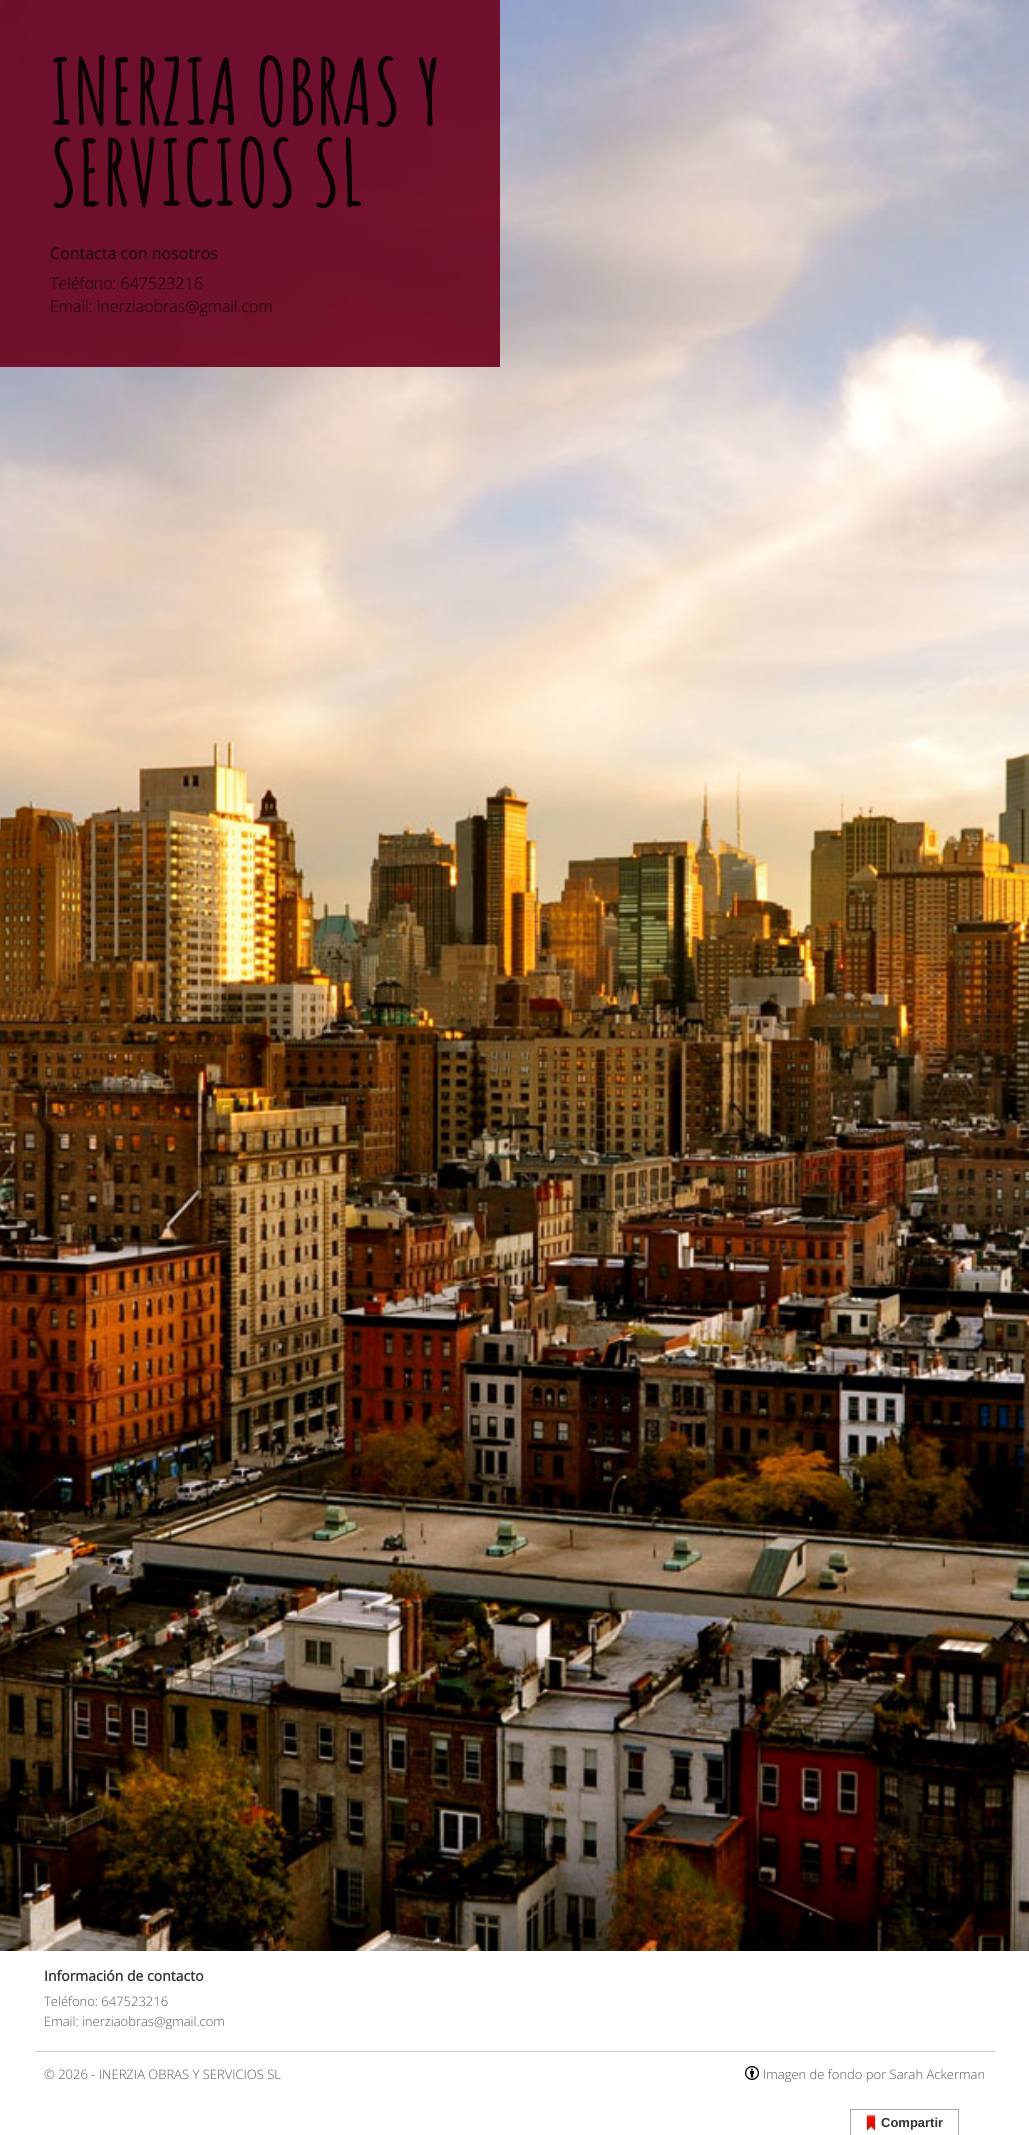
#include <cairo.h>
#include <math.h>
#include <stddef.h>

typedef struct { double x, y; const char *s; } line_t;
typedef struct { double x, y, w, h; unsigned color; } box_t;

static void ink(cairo_t *ctx, unsigned color) {
    cairo_set_source_rgb(ctx, (color >> 16) / 255.0, (color >> 8 & 255) / 255.0, (color & 255) / 255.0);
}

static void paste(cairo_t *ctx, const char *path, double x, double y, double w, double h) {
    cairo_surface_t *image = cairo_image_surface_create_from_png(path);
    cairo_save(ctx);
    cairo_set_source_surface(ctx, image, x, y);
    cairo_rectangle(ctx, x, y, w, h);
    cairo_fill(ctx);
    cairo_restore(ctx);
    cairo_surface_destroy(image);
}

int main(void) {
    cairo_surface_t *surface = cairo_image_surface_create(CAIRO_FORMAT_RGB24, 1029, 2135);
    cairo_t *ctx = cairo_create(surface);
    cairo_font_options_t *options = cairo_font_options_create();
    cairo_font_options_set_hint_metrics(options, CAIRO_HINT_METRICS_OFF);
    cairo_font_options_set_hint_style(options, CAIRO_HINT_STYLE_NONE);
    cairo_set_font_options(ctx, options);
    cairo_set_miter_limit(ctx, 4);
    ink(ctx, 0xFFFFFF);
    cairo_paint(ctx);
    paste(ctx, "media/1.png", 0, 0, 1029, 1951);
    cairo_set_source_rgba(ctx, 0.42, 0, 0.106, 0.9);
    cairo_rectangle(ctx, 0, 0, 500, 367);
    cairo_fill(ctx);
    cairo_select_font_face(ctx, "Amatic SC", CAIRO_FONT_SLANT_NORMAL, CAIRO_FONT_WEIGHT_BOLD);
    cairo_set_font_size(ctx, 90);
    ink(ctx, 0x0B0204);
    cairo_move_to(ctx, 50, 125);
    cairo_show_text(ctx, "INERZIA OBRAS Y");
    cairo_move_to(ctx, 50, 206);
    cairo_show_text(ctx, "SERVICIOS SL");
    cairo_select_font_face(ctx, "Open Sans", CAIRO_FONT_SLANT_NORMAL, CAIRO_FONT_WEIGHT_NORMAL);
    cairo_set_font_size(ctx, 16);
    cairo_move_to(ctx, 50, 259);
    cairo_show_text(ctx, "Contacta con nosotros");
    cairo_select_font_face(ctx, "Open Sans Light", CAIRO_FONT_SLANT_NORMAL, CAIRO_FONT_WEIGHT_NORMAL);
    cairo_move_to(ctx, 50, 289);
    cairo_show_text(ctx, "Teléfono: 647523216");
    cairo_move_to(ctx, 50, 312);
    cairo_show_text(ctx, "Email: inerziaobras@gmail.com");
    ink(ctx, 0xCBCBDB);
    cairo_rectangle(ctx, 35, 2051, 960, 1);
    cairo_fill(ctx);
    cairo_select_font_face(ctx, "Open Sans", CAIRO_FONT_SLANT_NORMAL, CAIRO_FONT_WEIGHT_BOLD);
    cairo_set_font_size(ctx, 14);
    ink(ctx, 0x333333);
    cairo_move_to(ctx, 44, 1981);
    cairo_show_text(ctx, "Información de contacto");
    cairo_select_font_face(ctx, "Open Sans Light", CAIRO_FONT_SLANT_NORMAL, CAIRO_FONT_WEIGHT_NORMAL);
    cairo_set_font_size(ctx, 13);
    ink(ctx, 0x555555);
    {
        static const line_t items[] = {
            {44, 2006, "Teléfono: 647523216"},
            {44, 2026, "Email: inerziaobras@gmail.com"},
            {44, 2079, "© 2026 - INERZIA OBRAS Y SERVICIOS SL"},
        };
        for (size_t i = 0; i < sizeof items / sizeof *items; i++) {
            cairo_move_to(ctx, items[i].x, items[i].y);
            cairo_show_text(ctx, items[i].s);
        }
    }
    paste(ctx, "media/2.png", 745, 2066, 14, 14);
    cairo_move_to(ctx, 763, 2079);
    cairo_show_text(ctx, "Imagen de fondo por Sarah Ackerman");
    {
        static const box_t items[] = {
            {850, 2109, 109, 1, 0xAAAAAA},
            {958, 2109, 1, 26, 0xAAAAAA},
            {850, 2109, 1, 26, 0xAAAAAA},
        };
        for (size_t i = 0; i < sizeof items / sizeof *items; i++) {
            ink(ctx, items[i].color);
            cairo_rectangle(ctx, items[i].x, items[i].y, items[i].w, items[i].h);
            cairo_fill(ctx);
        }
    }
    paste(ctx, "media/3.png", 866, 2115, 10, 17);
    cairo_select_font_face(ctx, "Liberation Sans", CAIRO_FONT_SLANT_NORMAL, CAIRO_FONT_WEIGHT_BOLD);
    ink(ctx, 0x333333);
    cairo_move_to(ctx, 881, 2127);
    cairo_show_text(ctx, "Compartir");
    cairo_surface_write_to_png(surface, "image.png");
    cairo_font_options_destroy(options);
    cairo_destroy(ctx);
    cairo_surface_destroy(surface);
    return 0;
}
